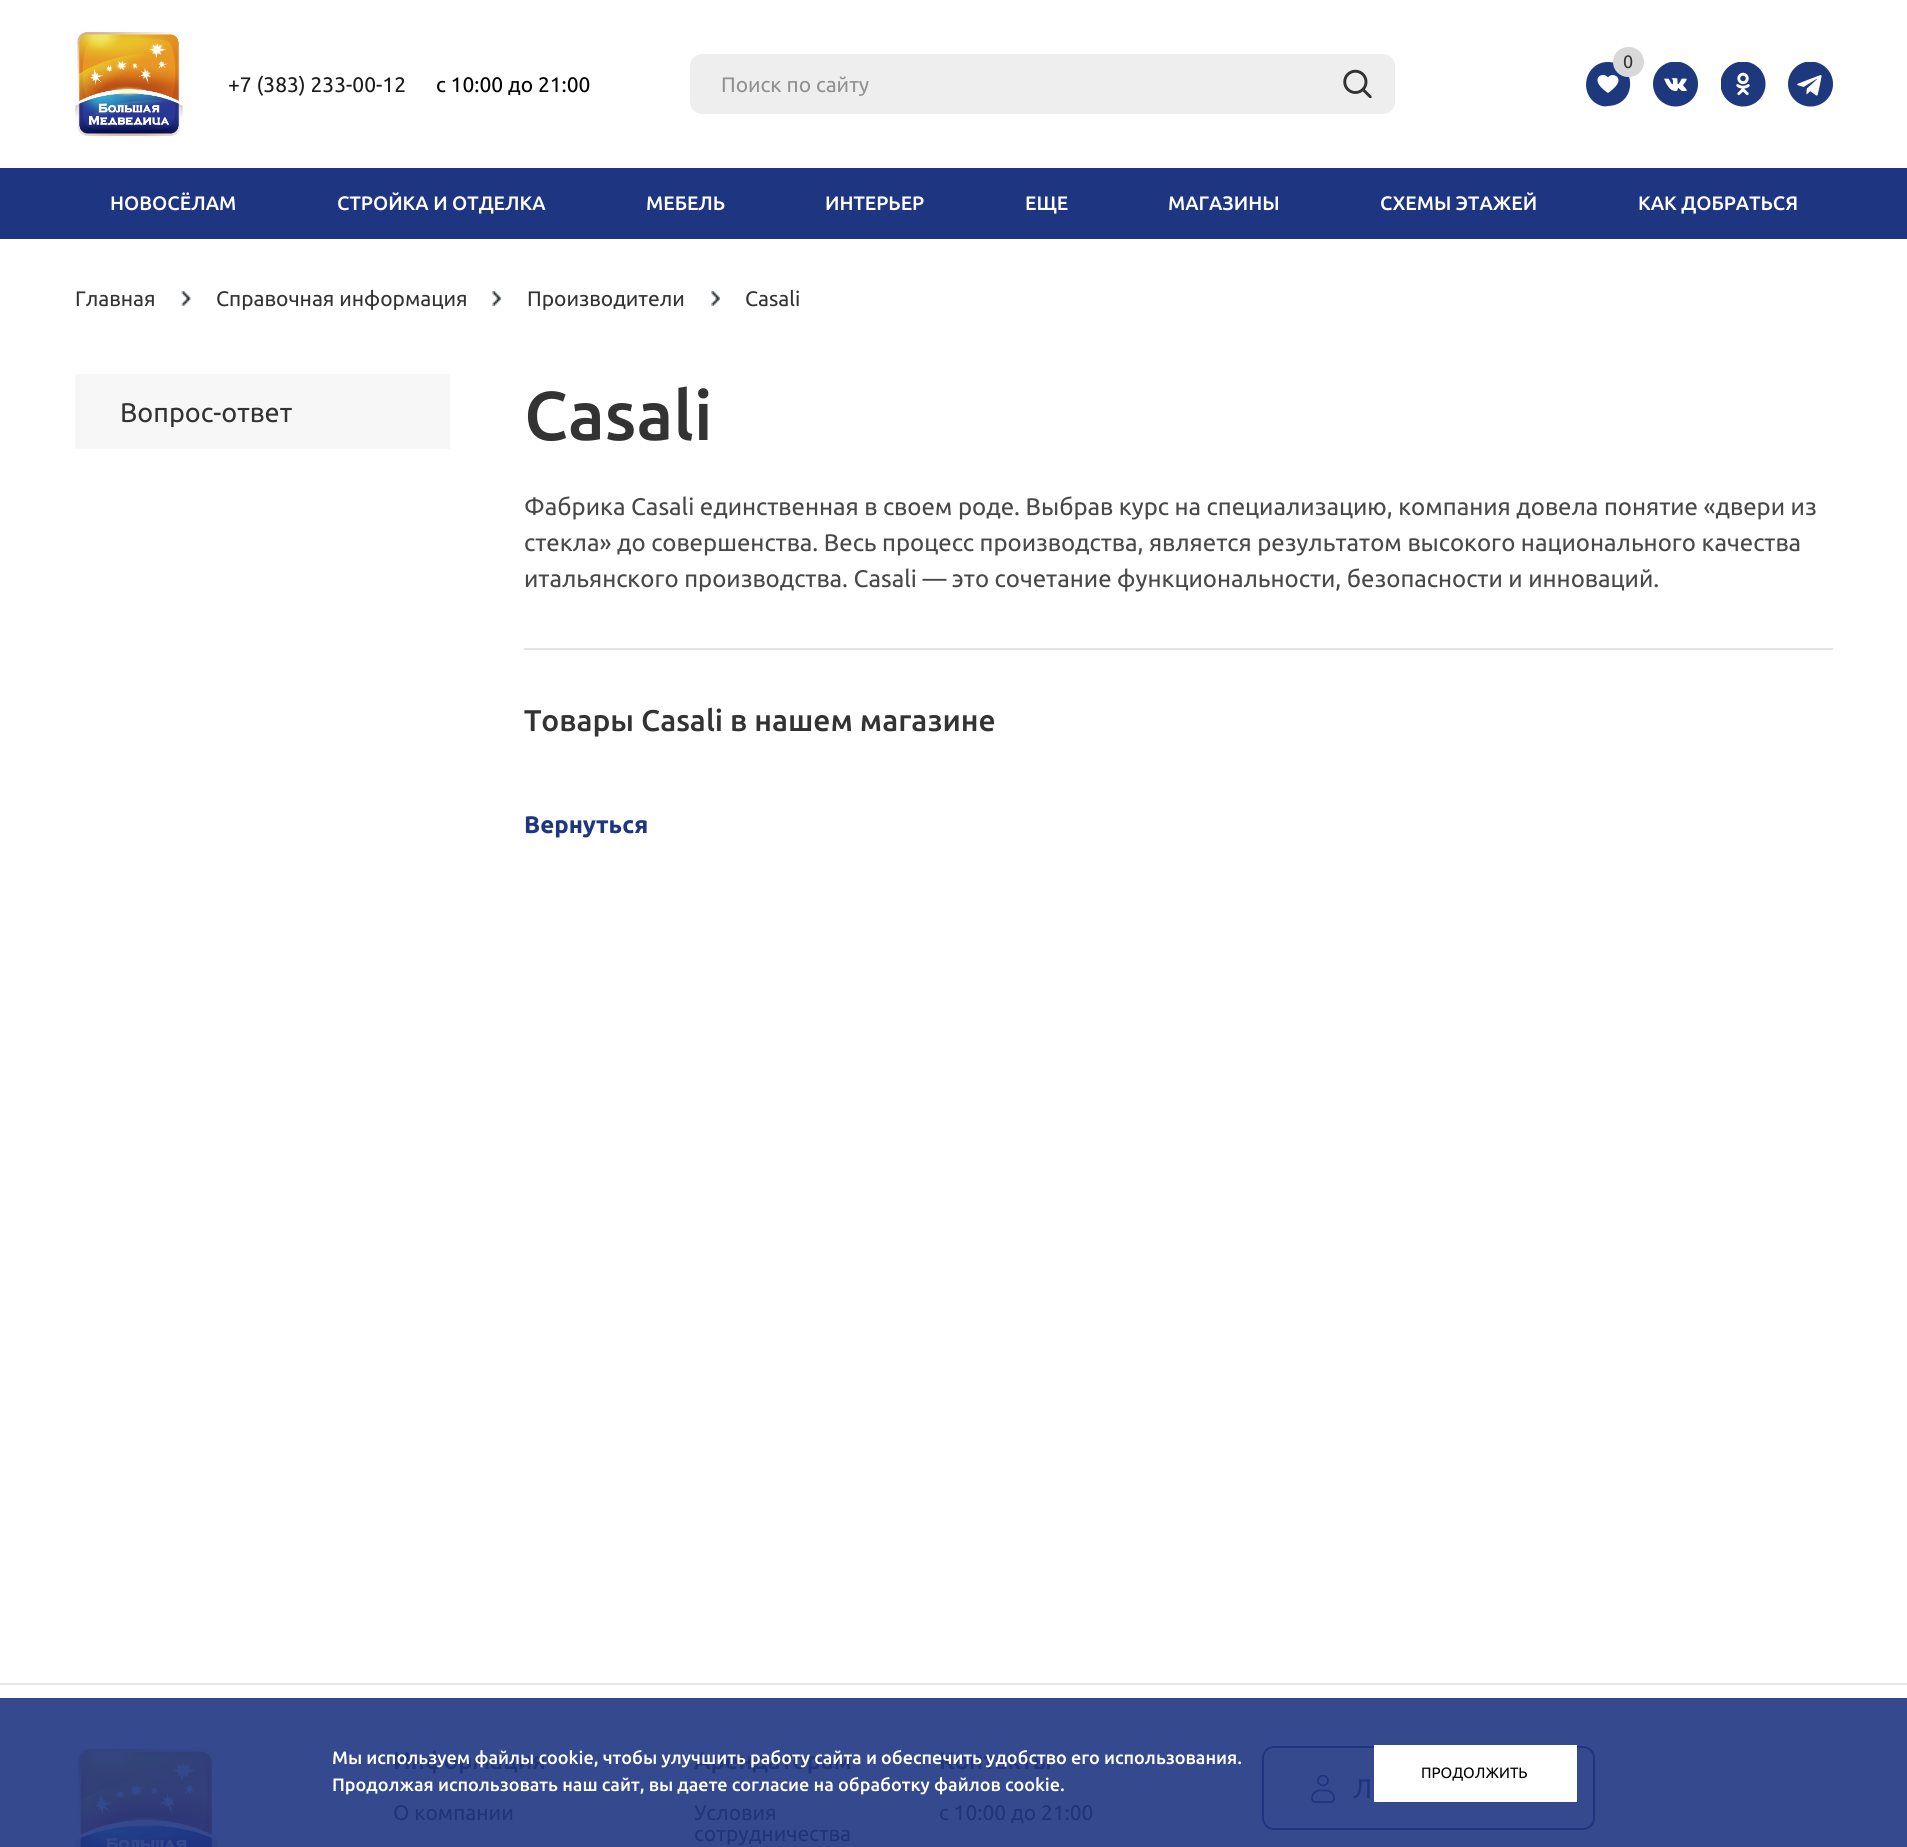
#include <cairo.h>
#include <math.h>
#include <stddef.h>

typedef struct { double x, y; const char *s; } line_t;

static void ink(cairo_t *ctx, unsigned color) {
    cairo_set_source_rgb(ctx, (color >> 16) / 255.0, (color >> 8 & 255) / 255.0, (color & 255) / 255.0);
}

static void round_path(cairo_t *ctx, double x, double y, double w, double h, double r) {
    cairo_new_sub_path(ctx);
    cairo_arc(ctx, x + w - r, y + h - r, r, 0, M_PI / 2);
    cairo_arc(ctx, x + r, y + h - r, r, M_PI / 2, M_PI);
    cairo_arc(ctx, x + r, y + r, r, M_PI, 1.5 * M_PI);
    cairo_arc(ctx, x + w - r, y + r, r, 1.5 * M_PI, 2 * M_PI);
    cairo_close_path(ctx);
}

static void paste(cairo_t *ctx, const char *path, double x, double y, double w, double h) {
    cairo_surface_t *image = cairo_image_surface_create_from_png(path);
    cairo_save(ctx);
    cairo_set_source_surface(ctx, image, x, y);
    cairo_rectangle(ctx, x, y, w, h);
    cairo_fill(ctx);
    cairo_restore(ctx);
    cairo_surface_destroy(image);
}

int main(void) {
    cairo_surface_t *surface = cairo_image_surface_create(CAIRO_FORMAT_RGB24, 1907, 1847);
    cairo_t *ctx = cairo_create(surface);
    cairo_font_options_t *options = cairo_font_options_create();
    cairo_font_options_set_hint_metrics(options, CAIRO_HINT_METRICS_OFF);
    cairo_font_options_set_hint_style(options, CAIRO_HINT_STYLE_NONE);
    cairo_set_font_options(ctx, options);
    cairo_set_miter_limit(ctx, 4);
    ink(ctx, 0xFFFFFF);
    cairo_paint(ctx);
    ink(ctx, 0x34498E);
    cairo_rectangle(ctx, 0, 1698, 1907, 149);
    cairo_fill(ctx);
    paste(ctx, "media/1.png", 75, 32, 108, 104);
    ink(ctx, 0x1E387E);
    cairo_new_path(ctx);
    cairo_move_to(ctx, 1608, 62);
    cairo_curve_to(ctx, 1637, 62, 1638, 105, 1608, 106);
    cairo_curve_to(ctx, 1604, 107, 1601, 106, 1597, 104);
    cairo_curve_to(ctx, 1578, 93, 1585, 62, 1608, 62);
    cairo_close_path(ctx);
    cairo_fill(ctx);
    ink(ctx, 0xFFFFFF);
    cairo_new_path(ctx);
    cairo_move_to(ctx, 1618.5, 80.5);
    cairo_curve_to(ctx, 1618.5, 75, 1611, 73, 1608, 77.5);
    cairo_curve_to(ctx, 1603, 70.5, 1587, 79, 1608, 93);
    cairo_curve_to(ctx, 1608, 93, 1618.5, 86, 1618.5, 80.5);
    cairo_close_path(ctx);
    cairo_fill(ctx);
    ink(ctx, 0xD8D8D8);
    round_path(ctx, 1613, 47, 31, 30, 15);
    cairo_fill(ctx);
    cairo_select_font_face(ctx, "Ubuntu", CAIRO_FONT_SLANT_NORMAL, CAIRO_FONT_WEIGHT_NORMAL);
    cairo_set_font_size(ctx, 18);
    ink(ctx, 0x333333);
    cairo_move_to(ctx, 1623, 68);
    cairo_show_text(ctx, "0");
    paste(ctx, "media/2.png", 1653, 62, 45, 45);
    paste(ctx, "media/3.png", 1721, 62, 45, 45);
    paste(ctx, "media/4.png", 1788, 62, 45, 45);
    cairo_set_font_size(ctx, 21);
    ink(ctx, 0x1D1A1A);
    cairo_move_to(ctx, 228, 92);
    cairo_show_text(ctx, "+7 (383) 233-00-12");
    ink(ctx, 0x000000);
    cairo_move_to(ctx, 436, 92);
    cairo_show_text(ctx, "c 10:00 до 21:00");
    ink(ctx, 0xEEEEEE);
    round_path(ctx, 690, 54, 705, 60, 12);
    cairo_fill(ctx);
    ink(ctx, 0x919191);
    cairo_move_to(ctx, 721, 92);
    cairo_show_text(ctx, "Поиск по сайту");
    paste(ctx, "media/5.png", 1343, 69, 29, 30);
    ink(ctx, 0x1E3581);
    cairo_rectangle(ctx, 0, 168, 1907, 71);
    cairo_fill(ctx);
    cairo_select_font_face(ctx, "Ubuntu Medium", CAIRO_FONT_SLANT_NORMAL, CAIRO_FONT_WEIGHT_NORMAL);
    cairo_set_font_size(ctx, 19.5);
    ink(ctx, 0xFFFFFF);
    {
        static const line_t items[] = {
            {110, 210, "НОВОСЁЛАМ"},
            {337, 210, "СТРОЙКА И ОТДЕЛКА"},
            {646, 210, "МЕБЕЛЬ"},
            {825, 210, "ИНТЕРЬЕР"},
            {1025, 210, "ЕЩЕ"},
            {1168, 210, "МАГАЗИНЫ"},
            {1380, 210, "СХЕМЫ ЭТАЖЕЙ"},
            {1638, 210, "КАК ДОБРАТЬСЯ"},
        };
        for (size_t i = 0; i < sizeof items / sizeof *items; i++) {
            cairo_move_to(ctx, items[i].x, items[i].y);
            cairo_show_text(ctx, items[i].s);
        }
    }
    cairo_select_font_face(ctx, "Ubuntu", CAIRO_FONT_SLANT_NORMAL, CAIRO_FONT_WEIGHT_NORMAL);
    cairo_set_font_size(ctx, 21);
    ink(ctx, 0x333333);
    cairo_move_to(ctx, 75, 306);
    cairo_show_text(ctx, "Главная");
    paste(ctx, "media/6.png", 181, 291, 10, 15);
    cairo_move_to(ctx, 216, 306);
    cairo_show_text(ctx, "Справочная информация");
    paste(ctx, "media/7.png", 492, 291, 9, 15);
    cairo_move_to(ctx, 527, 306);
    cairo_show_text(ctx, "Производители");
    paste(ctx, "media/7.png", 711, 291, 9, 15);
    cairo_move_to(ctx, 745, 306);
    cairo_show_text(ctx, "Casali");
    ink(ctx, 0xF7F7F7);
    cairo_rectangle(ctx, 75, 374, 375, 75);
    cairo_fill(ctx);
    cairo_set_font_size(ctx, 27);
    ink(ctx, 0x333333);
    cairo_move_to(ctx, 120, 422);
    cairo_show_text(ctx, "Вопрос-ответ");
    cairo_select_font_face(ctx, "Ubuntu Medium", CAIRO_FONT_SLANT_NORMAL, CAIRO_FONT_WEIGHT_NORMAL);
    cairo_set_font_size(ctx, 69);
    cairo_move_to(ctx, 524, 440);
    cairo_show_text(ctx, "Casali");
    cairo_select_font_face(ctx, "Ubuntu", CAIRO_FONT_SLANT_NORMAL, CAIRO_FONT_WEIGHT_NORMAL);
    cairo_set_font_size(ctx, 24);
    ink(ctx, 0x484848);
    {
        static const line_t items[] = {
            {524, 515, "Фабрика Casali единственная в своем роде. Выбрав курс на специализацию, компания довела понятие «двери из"},
            {524, 551, "стекла» до совершенства. Весь процесс производства, является результатом высокого национального качества"},
            {524, 587, "итальянского производства. Casali — это сочетание функциональности, безопасности и инноваций."},
        };
        for (size_t i = 0; i < sizeof items / sizeof *items; i++) {
            cairo_move_to(ctx, items[i].x, items[i].y);
            cairo_show_text(ctx, items[i].s);
        }
    }
    ink(ctx, 0xE5E5E5);
    cairo_rectangle(ctx, 524, 648, 1309, 2);
    cairo_fill(ctx);
    cairo_select_font_face(ctx, "Ubuntu Medium", CAIRO_FONT_SLANT_NORMAL, CAIRO_FONT_WEIGHT_NORMAL);
    cairo_set_font_size(ctx, 30);
    ink(ctx, 0x333333);
    cairo_move_to(ctx, 524, 731);
    cairo_show_text(ctx, "Товары Casali в нашем магазине");
    cairo_select_font_face(ctx, "Ubuntu", CAIRO_FONT_SLANT_NORMAL, CAIRO_FONT_WEIGHT_BOLD);
    cairo_set_font_size(ctx, 24);
    ink(ctx, 0x1E3581);
    cairo_move_to(ctx, 524, 833);
    cairo_show_text(ctx, "Вернуться");
    cairo_select_font_face(ctx, "Ubuntu Medium", CAIRO_FONT_SLANT_NORMAL, CAIRO_FONT_WEIGHT_NORMAL);
    ink(ctx, 0x203579);
    {
        static const line_t items[] = {
            {393, 1769, "Информация"},
            {694, 1769, "Арендаторам"},
            {939, 1769, "Контакты"},
        };
        for (size_t i = 0; i < sizeof items / sizeof *items; i++) {
            cairo_move_to(ctx, items[i].x, items[i].y);
            cairo_show_text(ctx, items[i].s);
        }
    }
    cairo_set_font_size(ctx, 18);
    ink(ctx, 0xFFFFFF);
    cairo_move_to(ctx, 332, 1764);
    cairo_show_text(ctx, "Мы используем файлы cookie, чтобы улучшить работу сайта и обеспечить удобство его использования.");
    cairo_move_to(ctx, 332, 1791);
    cairo_show_text(ctx, "Продолжая использовать наш сайт, вы даете согласие на обработку файлов cookie.");
    round_path(ctx, 1263, 1747, 331, 82, 11);
    ink(ctx, 0x1E3581);
    cairo_stroke(ctx);
    ink(ctx, 0xFFFFFF);
    cairo_rectangle(ctx, 1374, 1745, 203, 57);
    cairo_fill(ctx);
    cairo_select_font_face(ctx, "Ubuntu", CAIRO_FONT_SLANT_NORMAL, CAIRO_FONT_WEIGHT_NORMAL);
    cairo_set_font_size(ctx, 15);
    ink(ctx, 0x000000);
    cairo_move_to(ctx, 1421, 1778);
    cairo_show_text(ctx, "ПРОДОЛЖИТЬ");
    ink(ctx, 0xE7E7E7);
    cairo_rectangle(ctx, 0, 1683, 1907, 2);
    cairo_fill(ctx);
    paste(ctx, "media/8.png", 75, 1748, 143, 99);
    cairo_set_font_size(ctx, 21);
    ink(ctx, 0x203579);
    {
        static const line_t items[] = {
            {393, 1820, "О компании"},
            {694, 1820, "Условия"},
            {694, 1841, "сотрудничества"},
            {939, 1820, "c 10:00 до 21:00"},
        };
        for (size_t i = 0; i < sizeof items / sizeof *items; i++) {
            cairo_move_to(ctx, items[i].x, items[i].y);
            cairo_show_text(ctx, items[i].s);
        }
    }
    paste(ctx, "media/9.png", 1311, 1775, 24, 28);
    cairo_set_font_size(ctx, 27);
    ink(ctx, 0x1E3581);
    cairo_move_to(ctx, 1353, 1798);
    cairo_show_text(ctx, "Л");
    cairo_surface_write_to_png(surface, "image.png");
    cairo_font_options_destroy(options);
    cairo_destroy(ctx);
    cairo_surface_destroy(surface);
    return 0;
}
